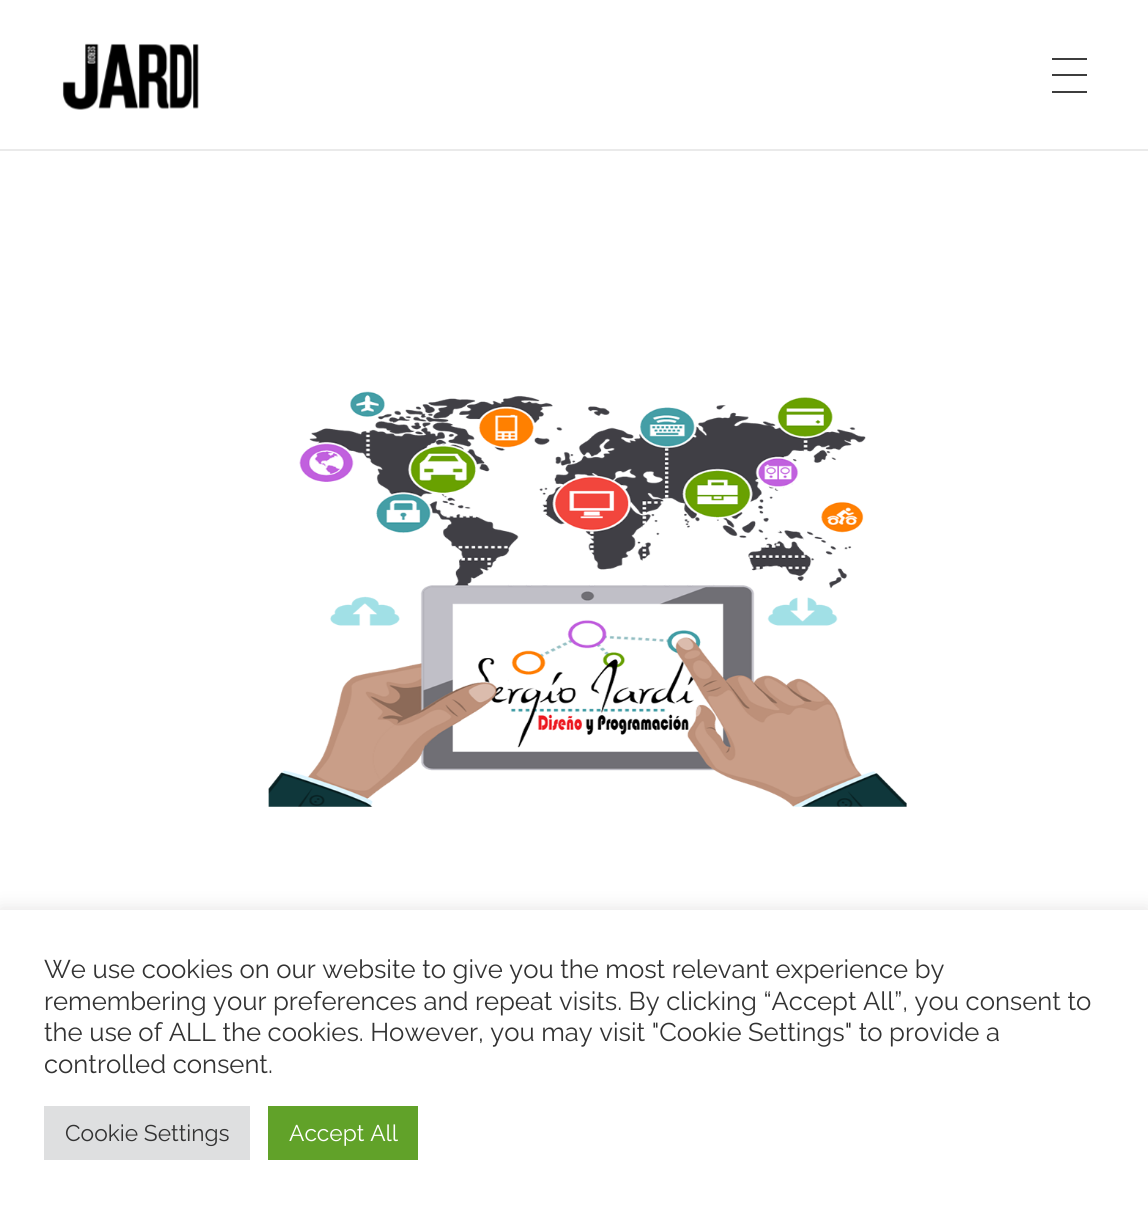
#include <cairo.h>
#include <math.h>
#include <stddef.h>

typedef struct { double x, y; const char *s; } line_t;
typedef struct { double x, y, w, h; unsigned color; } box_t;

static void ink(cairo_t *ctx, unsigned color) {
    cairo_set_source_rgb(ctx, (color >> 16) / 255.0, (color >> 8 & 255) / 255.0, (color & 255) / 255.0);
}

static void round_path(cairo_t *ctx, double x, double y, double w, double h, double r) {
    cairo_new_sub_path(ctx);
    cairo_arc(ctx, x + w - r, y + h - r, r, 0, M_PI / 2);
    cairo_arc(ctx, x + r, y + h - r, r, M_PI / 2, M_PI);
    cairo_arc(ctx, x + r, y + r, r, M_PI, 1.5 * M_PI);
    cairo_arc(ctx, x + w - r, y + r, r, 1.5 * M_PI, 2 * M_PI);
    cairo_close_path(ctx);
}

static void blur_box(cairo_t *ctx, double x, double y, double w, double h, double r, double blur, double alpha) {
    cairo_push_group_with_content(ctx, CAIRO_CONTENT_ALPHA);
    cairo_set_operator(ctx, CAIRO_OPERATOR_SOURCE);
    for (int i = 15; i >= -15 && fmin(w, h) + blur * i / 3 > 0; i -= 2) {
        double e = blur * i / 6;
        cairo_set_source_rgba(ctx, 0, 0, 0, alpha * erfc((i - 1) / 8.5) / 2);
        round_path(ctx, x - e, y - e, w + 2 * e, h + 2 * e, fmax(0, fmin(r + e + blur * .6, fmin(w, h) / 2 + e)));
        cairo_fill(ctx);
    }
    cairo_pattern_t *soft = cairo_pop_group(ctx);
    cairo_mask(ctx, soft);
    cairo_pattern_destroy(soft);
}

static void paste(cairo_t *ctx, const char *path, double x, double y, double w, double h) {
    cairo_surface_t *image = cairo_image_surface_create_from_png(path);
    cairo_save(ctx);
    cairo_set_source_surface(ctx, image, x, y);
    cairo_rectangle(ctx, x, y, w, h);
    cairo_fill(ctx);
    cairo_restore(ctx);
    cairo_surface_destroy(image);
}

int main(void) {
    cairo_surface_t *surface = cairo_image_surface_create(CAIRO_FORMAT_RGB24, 1148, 1212);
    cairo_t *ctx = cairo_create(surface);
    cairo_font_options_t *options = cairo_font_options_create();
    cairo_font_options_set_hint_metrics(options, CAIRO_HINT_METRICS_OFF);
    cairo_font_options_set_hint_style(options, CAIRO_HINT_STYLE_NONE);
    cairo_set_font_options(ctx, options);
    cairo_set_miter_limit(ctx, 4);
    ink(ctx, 0xFFFFFF);
    cairo_paint(ctx);
    ink(ctx, 0xEAEAEA);
    cairo_rectangle(ctx, 0, 149, 1148, 2);
    cairo_fill(ctx);
    paste(ctx, "media/1.png", 62, 43, 137, 67);
    {
        static const box_t items[] = {
            {1052, 58, 35, 2, 0x3D3D3D},
            {1052, 74, 35, 2, 0x3D3D3D},
            {1052, 91, 35, 2, 0x3D3D3D},
        };
        for (size_t i = 0; i < sizeof items / sizeof *items; i++) {
            ink(ctx, items[i].color);
            cairo_rectangle(ctx, items[i].x, items[i].y, items[i].w, items[i].h);
            cairo_fill(ctx);
        }
    }
    paste(ctx, "media/2.png", 268, 391, 639, 416);
    ink(ctx, 0xACABAB);
    blur_box(ctx, 0, 908, 1148, 303, 0, 9, 0.3);
    ink(ctx, 0xFFFFFF);
    cairo_rectangle(ctx, 0, 910, 1148, 302);
    cairo_fill(ctx);
    cairo_select_font_face(ctx, "Raleway", CAIRO_FONT_SLANT_NORMAL, CAIRO_FONT_WEIGHT_NORMAL);
    cairo_set_font_size(ctx, 25.65);
    ink(ctx, 0x333333);
    {
        static const line_t items[] = {
            {44, 978, "We use cookies on our website to give you the most relevant experience by"},
            {44, 1010, "remembering your preferences and repeat visits. By clicking “Accept All”, you consent to"},
            {44, 1041, "the use of ALL the cookies. However, you may visit \"Cookie Settings\" to provide a"},
            {44, 1073, "controlled consent."},
        };
        for (size_t i = 0; i < sizeof items / sizeof *items; i++) {
            cairo_move_to(ctx, items[i].x, items[i].y);
            cairo_show_text(ctx, items[i].s);
        }
    }
    ink(ctx, 0xDEDFE0);
    cairo_rectangle(ctx, 44, 1106, 206, 54);
    cairo_fill(ctx);
    cairo_set_font_size(ctx, 22.75);
    ink(ctx, 0x333333);
    cairo_move_to(ctx, 65, 1141);
    cairo_show_text(ctx, "Cookie Settings");
    ink(ctx, 0x61A229);
    cairo_rectangle(ctx, 268, 1106, 150, 54);
    cairo_fill(ctx);
    ink(ctx, 0xFFFFFF);
    cairo_move_to(ctx, 289, 1141);
    cairo_show_text(ctx, "Accept All");
    cairo_surface_write_to_png(surface, "image.png");
    cairo_font_options_destroy(options);
    cairo_destroy(ctx);
    cairo_surface_destroy(surface);
    return 0;
}
